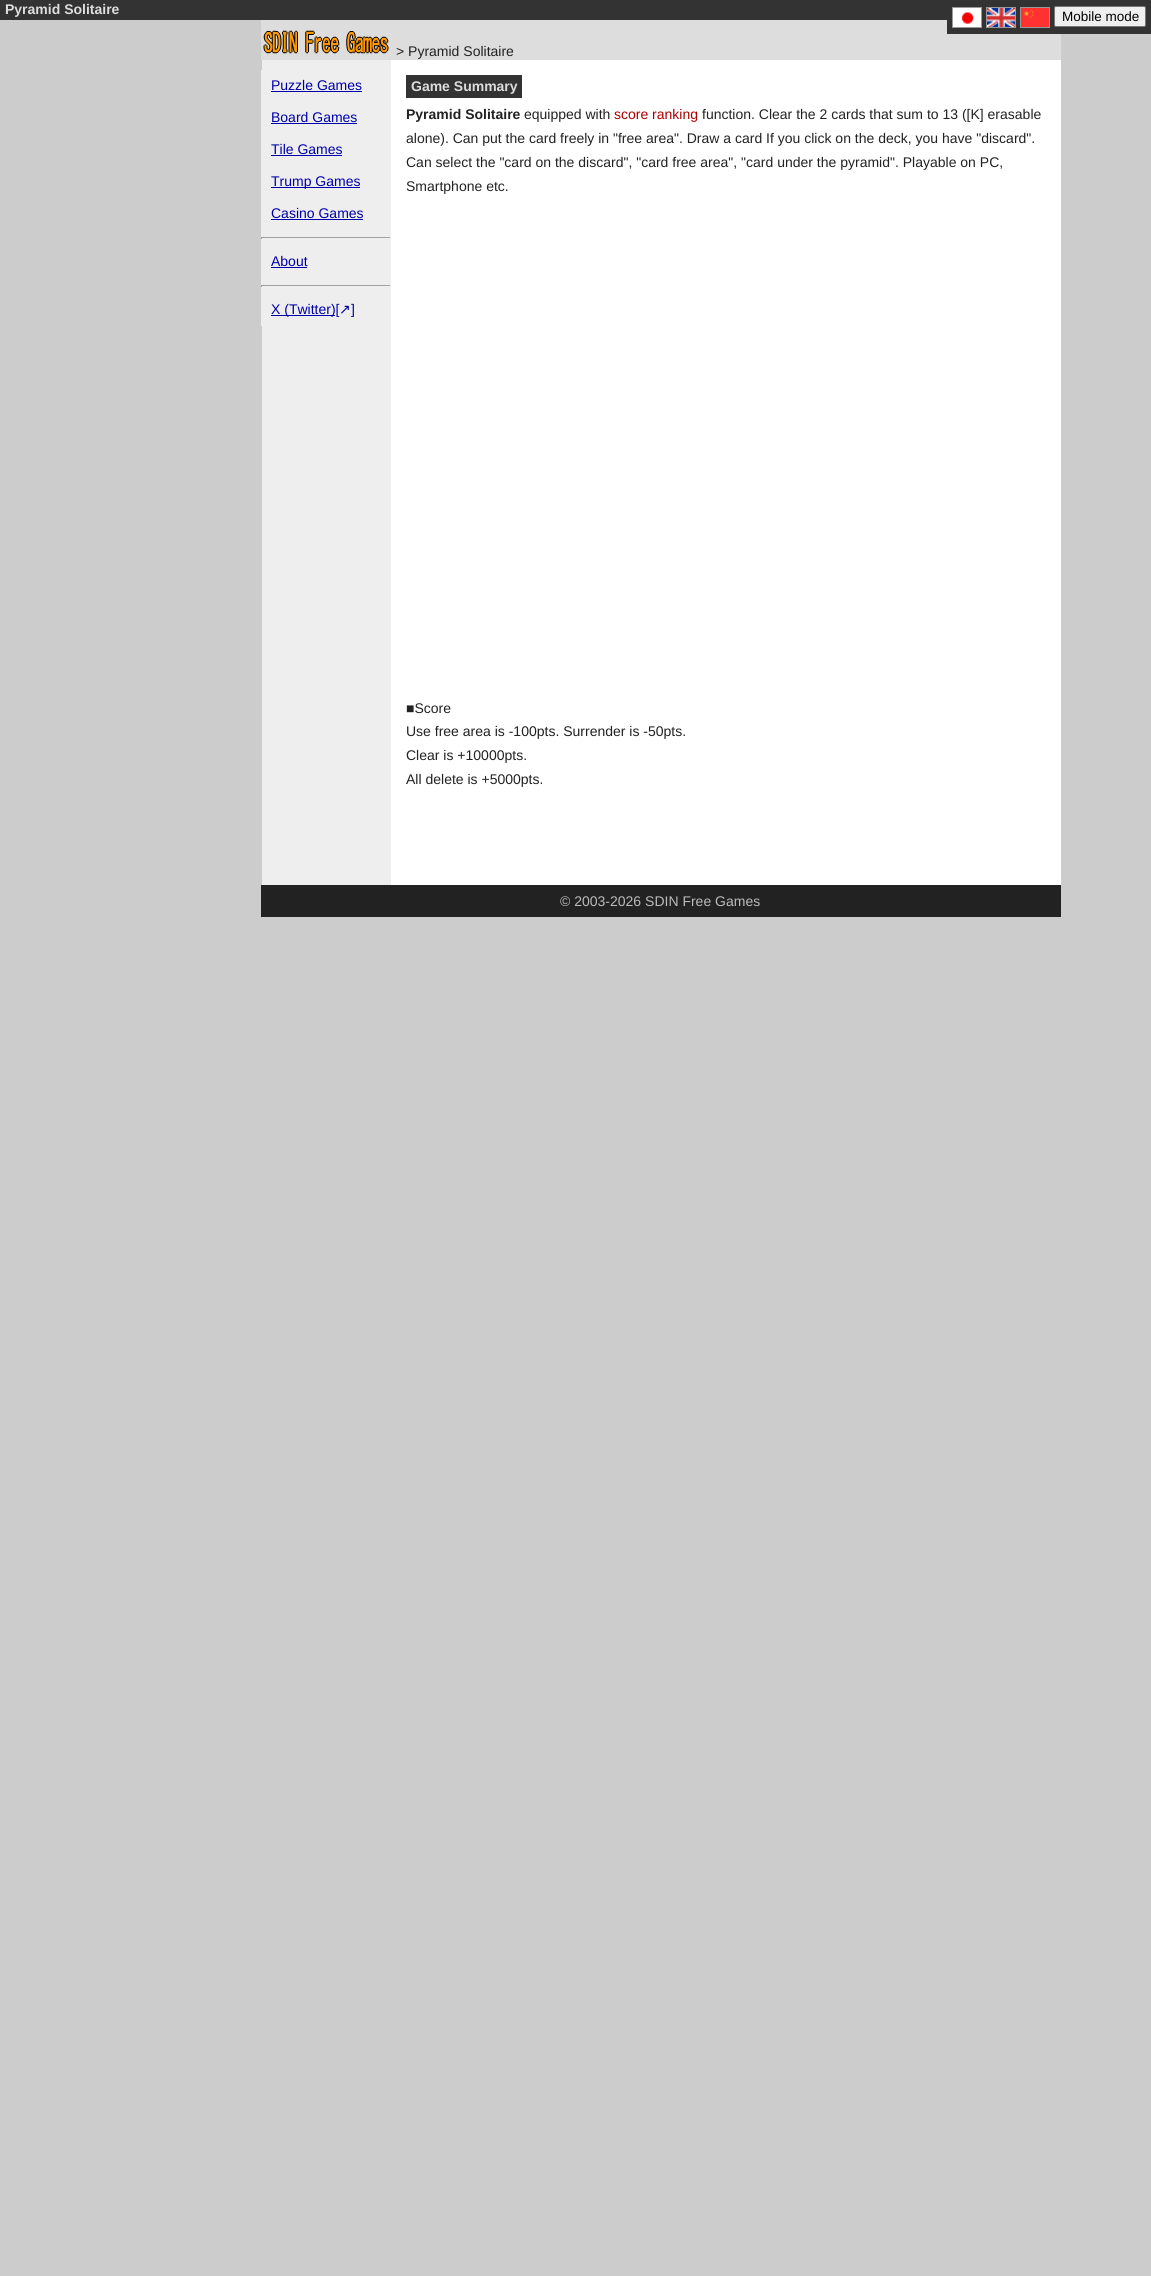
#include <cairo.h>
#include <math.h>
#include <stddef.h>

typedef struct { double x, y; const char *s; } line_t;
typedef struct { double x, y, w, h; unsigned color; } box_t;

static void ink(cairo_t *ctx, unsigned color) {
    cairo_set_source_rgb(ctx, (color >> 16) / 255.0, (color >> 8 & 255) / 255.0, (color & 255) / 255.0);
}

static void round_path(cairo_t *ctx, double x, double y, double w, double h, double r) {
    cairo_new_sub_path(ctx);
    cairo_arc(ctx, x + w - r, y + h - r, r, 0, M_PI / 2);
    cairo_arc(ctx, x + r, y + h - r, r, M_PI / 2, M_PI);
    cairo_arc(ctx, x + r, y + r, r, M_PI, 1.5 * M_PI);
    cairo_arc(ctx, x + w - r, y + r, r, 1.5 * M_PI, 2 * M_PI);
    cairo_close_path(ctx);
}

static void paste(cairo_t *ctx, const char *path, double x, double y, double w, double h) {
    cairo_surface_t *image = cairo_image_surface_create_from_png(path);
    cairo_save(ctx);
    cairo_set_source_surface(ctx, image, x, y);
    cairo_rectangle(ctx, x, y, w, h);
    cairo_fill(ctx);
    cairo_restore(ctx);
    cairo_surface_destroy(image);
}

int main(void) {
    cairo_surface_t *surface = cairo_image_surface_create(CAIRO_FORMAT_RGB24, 1151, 2276);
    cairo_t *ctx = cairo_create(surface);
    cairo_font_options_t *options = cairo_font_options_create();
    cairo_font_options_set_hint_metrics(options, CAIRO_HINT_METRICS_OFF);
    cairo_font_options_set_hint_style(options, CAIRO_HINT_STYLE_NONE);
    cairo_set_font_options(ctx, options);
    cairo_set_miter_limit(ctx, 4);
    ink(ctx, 0xCCCCCC);
    cairo_paint(ctx);
    ink(ctx, 0x333333);
    cairo_rectangle(ctx, 0, 0, 947, 20);
    cairo_fill(ctx);
    cairo_select_font_face(ctx, "Liberation Sans", CAIRO_FONT_SLANT_NORMAL, CAIRO_FONT_WEIGHT_BOLD);
    cairo_set_font_size(ctx, 14);
    ink(ctx, 0xDDDDDD);
    cairo_move_to(ctx, 5, 14);
    cairo_show_text(ctx, "Pyramid Solitaire");
    cairo_rectangle(ctx, 261, 20, 800, 40);
    cairo_fill(ctx);
    ink(ctx, 0x333333);
    cairo_rectangle(ctx, 947, 0, 204, 34);
    cairo_fill(ctx);
    cairo_rectangle(ctx, 952.5, 7.5, 29, 20);
    ink(ctx, 0x999999);
    cairo_set_line_width(ctx, 1);
    cairo_stroke(ctx);
    cairo_rectangle(ctx, 986.5, 7.5, 29, 20);
    cairo_stroke(ctx);
    cairo_rectangle(ctx, 1020.5, 7.5, 29, 20);
    cairo_stroke(ctx);
    paste(ctx, "media/1.png", 953, 8, 28, 19);
    paste(ctx, "media/2.png", 987, 8, 28, 19);
    paste(ctx, "media/3.png", 1021, 8, 28, 19);
    ink(ctx, 0xEFEFEF);
    round_path(ctx, 1054.5, 6.5, 91, 20, 1.5);
    cairo_fill_preserve(ctx);
    ink(ctx, 0x767676);
    cairo_stroke(ctx);
    cairo_select_font_face(ctx, "Liberation Sans", CAIRO_FONT_SLANT_NORMAL, CAIRO_FONT_WEIGHT_NORMAL);
    cairo_set_font_size(ctx, 13.5);
    ink(ctx, 0x000000);
    cairo_move_to(ctx, 1062, 21);
    cairo_show_text(ctx, "Mobile mode");
    ink(ctx, 0xEEEEEE);
    cairo_rectangle(ctx, 262, 60, 129, 825);
    cairo_fill(ctx);
    paste(ctx, "media/4.png", 263, 30, 126, 24);
    cairo_set_font_size(ctx, 14);
    ink(ctx, 0x222222);
    cairo_move_to(ctx, 396, 56);
    cairo_show_text(ctx, "> Pyramid Solitaire");
    ink(ctx, 0xEEEEEE);
    cairo_rectangle(ctx, 261, 70, 1, 256);
    cairo_fill(ctx);
    ink(ctx, 0x0000AA);
    cairo_move_to(ctx, 271, 90);
    cairo_show_text(ctx, "Puzzle Games");
    cairo_rectangle(ctx, 271, 91, 91, 1);
    cairo_fill(ctx);
    cairo_move_to(ctx, 271, 122);
    cairo_show_text(ctx, "Board Games");
    cairo_rectangle(ctx, 271, 123, 86, 1);
    cairo_fill(ctx);
    cairo_move_to(ctx, 271, 154);
    cairo_show_text(ctx, "Tile Games");
    cairo_rectangle(ctx, 271, 155, 71, 1);
    cairo_fill(ctx);
    cairo_rectangle(ctx, 271, 187, 89, 1);
    cairo_fill(ctx);
    cairo_move_to(ctx, 271, 186);
    cairo_show_text(ctx, "Trump Games");
    cairo_move_to(ctx, 271, 218);
    cairo_show_text(ctx, "Casino Games");
    {
        static const box_t items[] = {
            {271, 219, 92, 1, 0x0000AA},
            {261, 237, 130, 1, 0x9F9F9F},
            {390, 237, 1, 2, 0xEEEEEE},
            {261, 237, 1, 2, 0x9F9F9F},
        };
        for (size_t i = 0; i < sizeof items / sizeof *items; i++) {
            ink(ctx, items[i].color);
            cairo_rectangle(ctx, items[i].x, items[i].y, items[i].w, items[i].h);
            cairo_fill(ctx);
        }
    }
    ink(ctx, 0x0000AA);
    cairo_move_to(ctx, 271, 266);
    cairo_show_text(ctx, "About");
    {
        static const box_t items[] = {
            {271, 267, 36, 1, 0x0000AA},
            {261, 285, 130, 1, 0x9F9F9F},
            {390, 285, 1, 2, 0xEEEEEE},
            {261, 285, 1, 2, 0x9F9F9F},
            {271, 315, 64, 1, 0x0000AA},
        };
        for (size_t i = 0; i < sizeof items / sizeof *items; i++) {
            ink(ctx, items[i].color);
            cairo_rectangle(ctx, items[i].x, items[i].y, items[i].w, items[i].h);
            cairo_fill(ctx);
        }
    }
    cairo_move_to(ctx, 271, 314);
    cairo_show_text(ctx, "X (Twitter)[");
    cairo_select_font_face(ctx, "DejaVu Sans", CAIRO_FONT_SLANT_NORMAL, CAIRO_FONT_WEIGHT_NORMAL);
    cairo_move_to(ctx, 339, 314);
    cairo_show_text(ctx, "↗");
    cairo_select_font_face(ctx, "Liberation Sans", CAIRO_FONT_SLANT_NORMAL, CAIRO_FONT_WEIGHT_NORMAL);
    cairo_move_to(ctx, 351, 314);
    cairo_show_text(ctx, "]");
    ink(ctx, 0xFFFFFF);
    cairo_rectangle(ctx, 391, 60, 670, 825);
    cairo_fill(ctx);
    ink(ctx, 0x333333);
    cairo_rectangle(ctx, 406, 75, 116, 23);
    cairo_fill(ctx);
    cairo_select_font_face(ctx, "Liberation Sans", CAIRO_FONT_SLANT_NORMAL, CAIRO_FONT_WEIGHT_BOLD);
    ink(ctx, 0xDDDDDD);
    cairo_move_to(ctx, 411, 91);
    cairo_show_text(ctx, "Game Summary");
    ink(ctx, 0x222222);
    cairo_move_to(ctx, 406, 119);
    cairo_show_text(ctx, "Pyramid Solitaire");
    cairo_select_font_face(ctx, "Liberation Sans", CAIRO_FONT_SLANT_NORMAL, CAIRO_FONT_WEIGHT_NORMAL);
    cairo_move_to(ctx, 524, 119);
    cairo_show_text(ctx, "equipped with");
    ink(ctx, 0xAA0000);
    cairo_move_to(ctx, 614, 119);
    cairo_show_text(ctx, "score ranking");
    ink(ctx, 0x222222);
    {
        static const line_t items[] = {
            {702, 119, "function. Clear the 2 cards that sum to 13 ([K] erasable"},
            {406, 143, "alone). Can put the card freely in \"free area\". Draw a card If you click on the deck, you have \"discard\"."},
            {406, 167, "Can select the \"card on the discard\", \"card free area\", \"card under the pyramid\". Playable on PC,"},
            {406, 191, "Smartphone etc."},
            {406, 713, "■Score"},
            {406, 736, "Use free area is -100pts. Surrender is -50pts."},
            {406, 760, "Clear is +10000pts."},
            {406, 784, "All delete is +5000pts."},
        };
        for (size_t i = 0; i < sizeof items / sizeof *items; i++) {
            cairo_move_to(ctx, items[i].x, items[i].y);
            cairo_show_text(ctx, items[i].s);
        }
    }
    cairo_rectangle(ctx, 261, 885, 800, 32);
    cairo_fill(ctx);
    ink(ctx, 0xBBBBBB);
    cairo_move_to(ctx, 560, 906);
    cairo_show_text(ctx, "© 2003-2026 SDIN Free Games");
    cairo_surface_write_to_png(surface, "image.png");
    cairo_font_options_destroy(options);
    cairo_destroy(ctx);
    cairo_surface_destroy(surface);
    return 0;
}
